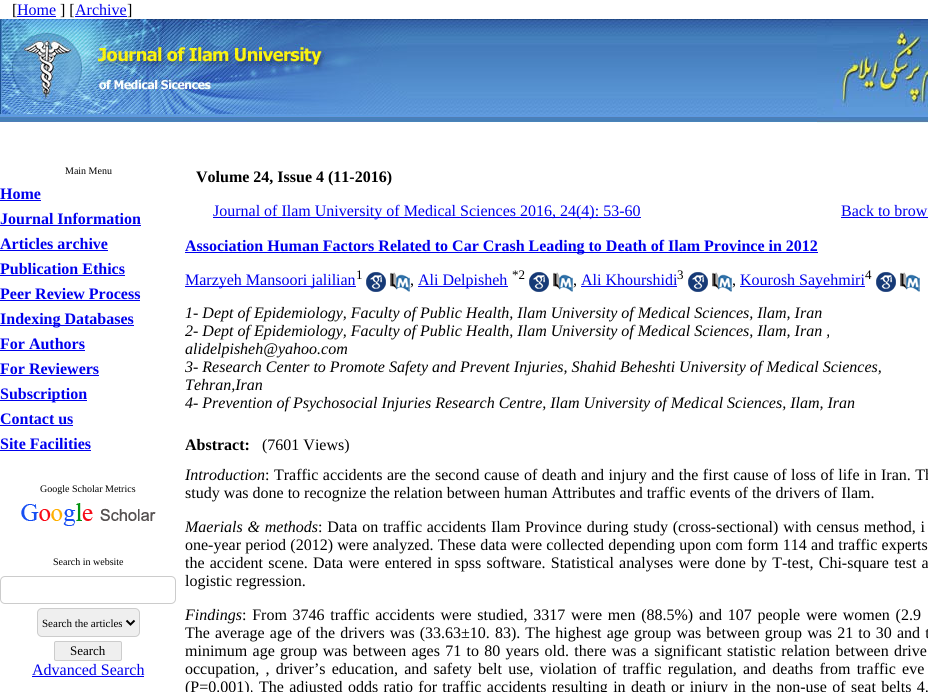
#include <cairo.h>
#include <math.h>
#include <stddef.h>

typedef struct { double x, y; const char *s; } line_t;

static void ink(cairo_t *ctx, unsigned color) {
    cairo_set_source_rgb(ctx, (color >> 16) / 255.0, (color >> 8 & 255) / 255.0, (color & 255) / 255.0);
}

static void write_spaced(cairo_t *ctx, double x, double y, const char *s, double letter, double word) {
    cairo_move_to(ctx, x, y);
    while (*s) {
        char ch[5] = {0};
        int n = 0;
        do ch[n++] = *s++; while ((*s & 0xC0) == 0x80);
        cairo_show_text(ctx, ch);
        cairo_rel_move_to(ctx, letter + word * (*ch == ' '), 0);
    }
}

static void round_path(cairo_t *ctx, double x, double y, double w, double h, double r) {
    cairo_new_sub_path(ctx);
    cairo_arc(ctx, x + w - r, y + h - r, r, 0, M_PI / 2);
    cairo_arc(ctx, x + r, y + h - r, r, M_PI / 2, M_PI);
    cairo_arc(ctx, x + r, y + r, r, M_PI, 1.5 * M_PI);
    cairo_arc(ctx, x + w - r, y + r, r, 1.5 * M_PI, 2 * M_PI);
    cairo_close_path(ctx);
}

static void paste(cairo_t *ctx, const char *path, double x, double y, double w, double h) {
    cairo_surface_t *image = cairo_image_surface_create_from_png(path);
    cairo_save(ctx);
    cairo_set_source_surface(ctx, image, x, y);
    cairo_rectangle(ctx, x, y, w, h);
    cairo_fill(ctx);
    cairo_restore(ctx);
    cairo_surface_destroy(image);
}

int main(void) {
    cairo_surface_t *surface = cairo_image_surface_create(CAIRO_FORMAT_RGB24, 928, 692);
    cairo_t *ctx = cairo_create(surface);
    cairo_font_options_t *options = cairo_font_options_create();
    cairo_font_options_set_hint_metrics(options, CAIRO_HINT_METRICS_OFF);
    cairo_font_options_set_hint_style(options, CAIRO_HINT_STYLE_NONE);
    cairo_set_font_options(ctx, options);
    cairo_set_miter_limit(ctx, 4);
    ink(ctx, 0xFFFFFF);
    cairo_paint(ctx);
    cairo_select_font_face(ctx, "Liberation Serif", CAIRO_FONT_SLANT_NORMAL, CAIRO_FONT_WEIGHT_NORMAL);
    cairo_set_font_size(ctx, 16);
    ink(ctx, 0x000000);
    cairo_move_to(ctx, 12, 15);
    cairo_show_text(ctx, "[");
    ink(ctx, 0x0000EE);
    cairo_move_to(ctx, 17, 15);
    cairo_show_text(ctx, "Home");
    cairo_rectangle(ctx, 17, 16, 39, 1);
    cairo_fill(ctx);
    ink(ctx, 0x000000);
    cairo_move_to(ctx, 60, 15);
    cairo_show_text(ctx, "] [");
    ink(ctx, 0x0000EE);
    cairo_move_to(ctx, 75, 15);
    cairo_show_text(ctx, "Archive");
    cairo_rectangle(ctx, 75, 16, 52, 1);
    cairo_fill(ctx);
    ink(ctx, 0x000000);
    cairo_move_to(ctx, 127, 15);
    cairo_show_text(ctx, "]");
    paste(ctx, "media/1.png", 0, 19, 151, 103);
    paste(ctx, "media/2.png", 407, 19, 410, 103);
    paste(ctx, "media/3.png", 151, 19, 256, 103);
    paste(ctx, "media/4.png", 817, 19, 111, 104);
    cairo_set_font_size(ctx, 10);
    cairo_move_to(ctx, 65, 174);
    cairo_show_text(ctx, "Main Menu");
    cairo_select_font_face(ctx, "Liberation Serif", CAIRO_FONT_SLANT_NORMAL, CAIRO_FONT_WEIGHT_BOLD);
    cairo_set_font_size(ctx, 16);
    ink(ctx, 0x0000EE);
    cairo_move_to(ctx, 0, 199);
    cairo_show_text(ctx, "Home");
    cairo_rectangle(ctx, 0, 200, 41, 1);
    cairo_fill(ctx);
    cairo_move_to(ctx, 0, 224);
    cairo_show_text(ctx, "Journal Information");
    cairo_rectangle(ctx, 0, 225, 141, 1);
    cairo_fill(ctx);
    cairo_move_to(ctx, 0, 249);
    cairo_show_text(ctx, "Articles archive");
    cairo_rectangle(ctx, 0, 250, 108, 1);
    cairo_fill(ctx);
    cairo_move_to(ctx, 0, 274);
    cairo_show_text(ctx, "Publication Ethics");
    cairo_rectangle(ctx, 0, 275, 125, 1);
    cairo_fill(ctx);
    cairo_move_to(ctx, 0, 299);
    cairo_show_text(ctx, "Peer Review Process");
    cairo_rectangle(ctx, 0, 300, 140, 1);
    cairo_fill(ctx);
    cairo_rectangle(ctx, 0, 325, 134, 1);
    cairo_fill(ctx);
    cairo_move_to(ctx, 0, 324);
    cairo_show_text(ctx, "Indexing Databases");
    cairo_move_to(ctx, 0, 349);
    cairo_show_text(ctx, "For Authors");
    cairo_rectangle(ctx, 0, 350, 85, 1);
    cairo_fill(ctx);
    cairo_move_to(ctx, 0, 374);
    cairo_show_text(ctx, "For Reviewers");
    cairo_rectangle(ctx, 0, 375, 99, 1);
    cairo_fill(ctx);
    cairo_rectangle(ctx, 0, 400, 87, 1);
    cairo_fill(ctx);
    cairo_move_to(ctx, 0, 399);
    cairo_show_text(ctx, "Subscription");
    cairo_move_to(ctx, 0, 424);
    cairo_show_text(ctx, "Contact us");
    cairo_rectangle(ctx, 0, 425, 73, 1);
    cairo_fill(ctx);
    cairo_move_to(ctx, 0, 449);
    cairo_show_text(ctx, "Site Facilities");
    cairo_rectangle(ctx, 0, 450, 91, 1);
    cairo_fill(ctx);
    cairo_select_font_face(ctx, "Liberation Serif", CAIRO_FONT_SLANT_NORMAL, CAIRO_FONT_WEIGHT_NORMAL);
    cairo_set_font_size(ctx, 10);
    ink(ctx, 0x000000);
    cairo_move_to(ctx, 40, 492);
    cairo_show_text(ctx, "Google Scholar Metrics");
    paste(ctx, "media/5.png", 21, 503, 135, 23);
    cairo_move_to(ctx, 53, 565);
    cairo_show_text(ctx, "Search in website");
    round_path(ctx, 0.5, 576.5, 175, 27, 4.5);
    ink(ctx, 0xCCCCCC);
    cairo_set_line_width(ctx, 1);
    cairo_stroke(ctx);
    ink(ctx, 0xEFEFEF);
    round_path(ctx, 37.5, 608.5, 102, 28, 4.5);
    cairo_fill_preserve(ctx);
    ink(ctx, 0xCCCCCC);
    cairo_stroke(ctx);
    cairo_new_path(ctx);
    cairo_move_to(ctx, 126.5, 620.5);
    cairo_line_to(ctx, 130.5, 624.5);
    cairo_line_to(ctx, 134.5, 620.5);
    ink(ctx, 0x000000);
    cairo_set_line_width(ctx, 2);
    cairo_stroke(ctx);
    cairo_set_font_size(ctx, 11);
    cairo_move_to(ctx, 42, 627);
    cairo_show_text(ctx, "Search the articles");
    ink(ctx, 0xEFEFEF);
    round_path(ctx, 54.5, 641.5, 67, 19, 1.5);
    cairo_fill_preserve(ctx);
    ink(ctx, 0xCCCCCC);
    cairo_set_line_width(ctx, 1);
    cairo_stroke(ctx);
    cairo_set_font_size(ctx, 13);
    ink(ctx, 0x000000);
    cairo_move_to(ctx, 70, 655);
    cairo_show_text(ctx, "Search");
    cairo_set_font_size(ctx, 16);
    ink(ctx, 0x0000EE);
    cairo_move_to(ctx, 32, 675);
    cairo_show_text(ctx, "Advanced Search");
    cairo_rectangle(ctx, 32, 676, 112, 1);
    cairo_fill(ctx);
    cairo_select_font_face(ctx, "Liberation Serif", CAIRO_FONT_SLANT_NORMAL, CAIRO_FONT_WEIGHT_BOLD);
    ink(ctx, 0x000000);
    cairo_move_to(ctx, 196, 182);
    cairo_show_text(ctx, "Volume 24, Issue 4 (11-2016)");
    ink(ctx, 0x0000EE);
    cairo_rectangle(ctx, 213, 217, 428, 1);
    cairo_fill(ctx);
    cairo_select_font_face(ctx, "Liberation Serif", CAIRO_FONT_SLANT_NORMAL, CAIRO_FONT_WEIGHT_NORMAL);
    cairo_move_to(ctx, 213, 216);
    cairo_show_text(ctx, "Journal of Ilam University of Medical Sciences 2016, 24(4): 53-60");
    cairo_move_to(ctx, 841, 216);
    cairo_show_text(ctx, "Back to brow");
    cairo_rectangle(ctx, 841, 217, 87, 1);
    cairo_fill(ctx);
    cairo_rectangle(ctx, 185, 252, 633, 1);
    cairo_fill(ctx);
    cairo_select_font_face(ctx, "Liberation Serif", CAIRO_FONT_SLANT_NORMAL, CAIRO_FONT_WEIGHT_BOLD);
    cairo_move_to(ctx, 185, 251);
    cairo_show_text(ctx, "Association Human Factors Related to Car Crash Leading to Death of Ilam Province in 2012");
    cairo_rectangle(ctx, 185, 286, 171, 1);
    cairo_fill(ctx);
    cairo_select_font_face(ctx, "Liberation Serif", CAIRO_FONT_SLANT_NORMAL, CAIRO_FONT_WEIGHT_NORMAL);
    cairo_move_to(ctx, 185, 285);
    cairo_show_text(ctx, "Marzyeh Mansoori jalilian");
    cairo_set_font_size(ctx, 13);
    ink(ctx, 0x000000);
    cairo_move_to(ctx, 356, 279);
    cairo_show_text(ctx, "1");
    paste(ctx, "media/6.png", 366, 272, 20, 20);
    paste(ctx, "media/7.png", 390, 272, 20, 20);
    cairo_set_font_size(ctx, 16);
    cairo_move_to(ctx, 410, 285);
    cairo_show_text(ctx, ",");
    ink(ctx, 0x0000EE);
    cairo_rectangle(ctx, 418, 286, 90, 1);
    cairo_fill(ctx);
    cairo_move_to(ctx, 418, 285);
    cairo_show_text(ctx, "Ali Delpisheh");
    cairo_set_font_size(ctx, 13);
    ink(ctx, 0x000000);
    cairo_move_to(ctx, 512, 279);
    cairo_show_text(ctx, "*2");
    paste(ctx, "media/6.png", 529, 272, 20, 20);
    paste(ctx, "media/7.png", 553, 272, 20, 20);
    cairo_set_font_size(ctx, 16);
    cairo_move_to(ctx, 573, 285);
    cairo_show_text(ctx, ",");
    ink(ctx, 0x0000EE);
    cairo_move_to(ctx, 581, 285);
    cairo_show_text(ctx, "Ali Khourshidi");
    cairo_rectangle(ctx, 581, 286, 96, 1);
    cairo_fill(ctx);
    cairo_set_font_size(ctx, 13);
    ink(ctx, 0x000000);
    cairo_move_to(ctx, 677, 279);
    cairo_show_text(ctx, "3");
    paste(ctx, "media/6.png", 688, 272, 20, 20);
    paste(ctx, "media/7.png", 712, 272, 20, 20);
    cairo_set_font_size(ctx, 16);
    cairo_move_to(ctx, 732, 285);
    cairo_show_text(ctx, ",");
    ink(ctx, 0x0000EE);
    cairo_rectangle(ctx, 740, 286, 125, 1);
    cairo_fill(ctx);
    cairo_move_to(ctx, 740, 285);
    cairo_show_text(ctx, "Kourosh Sayehmiri");
    cairo_set_font_size(ctx, 13);
    ink(ctx, 0x000000);
    cairo_move_to(ctx, 865, 279);
    cairo_show_text(ctx, "4");
    paste(ctx, "media/6.png", 876, 272, 20, 20);
    paste(ctx, "media/7.png", 900, 272, 20, 20);
    cairo_select_font_face(ctx, "Liberation Serif", CAIRO_FONT_SLANT_ITALIC, CAIRO_FONT_WEIGHT_NORMAL);
    cairo_set_font_size(ctx, 16);
    {
        static const line_t items[] = {
            {185, 318, "1- Dept of Epidemiology, Faculty of Public Health, Ilam University of Medical Sciences, Ilam, Iran"},
            {185, 336, "2- Dept of Epidemiology, Faculty of Public Health, Ilam University of Medical Sciences, Ilam, Iran ,"},
            {185, 354, "alidelpisheh@yahoo.com"},
            {185, 372, "3- Research Center to Promote Safety and Prevent Injuries, Shahid Beheshti University of Medical Sciences,"},
            {185, 390, "Tehran,Iran"},
            {185, 408, "4- Prevention of Psychosocial Injuries Research Centre, Ilam University of Medical Sciences, Ilam, Iran"},
        };
        for (size_t i = 0; i < sizeof items / sizeof *items; i++) {
            cairo_move_to(ctx, items[i].x, items[i].y);
            cairo_show_text(ctx, items[i].s);
        }
    }
    cairo_select_font_face(ctx, "Liberation Serif", CAIRO_FONT_SLANT_NORMAL, CAIRO_FONT_WEIGHT_BOLD);
    cairo_move_to(ctx, 185, 450);
    cairo_show_text(ctx, "Abstract:");
    cairo_select_font_face(ctx, "Liberation Serif", CAIRO_FONT_SLANT_NORMAL, CAIRO_FONT_WEIGHT_NORMAL);
    cairo_move_to(ctx, 262, 450);
    cairo_show_text(ctx, "(7601 Views)");
    cairo_select_font_face(ctx, "Liberation Serif", CAIRO_FONT_SLANT_ITALIC, CAIRO_FONT_WEIGHT_NORMAL);
    cairo_move_to(ctx, 185, 480);
    cairo_show_text(ctx, "Introduction");
    cairo_select_font_face(ctx, "Liberation Serif", CAIRO_FONT_SLANT_NORMAL, CAIRO_FONT_WEIGHT_NORMAL);
    write_spaced(ctx, 265, 480, ": Traffic accidents are the second cause of death and injury and the first cause of loss of life in Iran. Th", 0, 0.5);
    cairo_move_to(ctx, 185, 498);
    cairo_show_text(ctx, "study was done to recognize the relation between human Attributes and traffic events of the drivers of Ilam.");
    cairo_select_font_face(ctx, "Liberation Serif", CAIRO_FONT_SLANT_ITALIC, CAIRO_FONT_WEIGHT_NORMAL);
    write_spaced(ctx, 185, 532, "Maerials & methods", 0, 0.75);
    cairo_select_font_face(ctx, "Liberation Serif", CAIRO_FONT_SLANT_NORMAL, CAIRO_FONT_WEIGHT_NORMAL);
    write_spaced(ctx, 318, 532, ": Data on traffic accidents Ilam Province during study (cross-sectional) with census method, i", 0, 0.75);
    write_spaced(ctx, 185, 550, "one-year period (2012) were analyzed. These data were collected depending upon com form 114 and traffic experts", 0, 0.25);
    write_spaced(ctx, 185, 568, "the accident scene. Data were entered in spss software. Statistical analyses were done by T-test, Chi-square test a", 0, 1.2);
    cairo_move_to(ctx, 185, 586);
    cairo_show_text(ctx, "logistic regression.");
    cairo_select_font_face(ctx, "Liberation Serif", CAIRO_FONT_SLANT_ITALIC, CAIRO_FONT_WEIGHT_NORMAL);
    cairo_move_to(ctx, 185, 620);
    cairo_show_text(ctx, "Findings");
    cairo_select_font_face(ctx, "Liberation Serif", CAIRO_FONT_SLANT_NORMAL, CAIRO_FONT_WEIGHT_NORMAL);
    write_spaced(ctx, 242, 620, ": From 3746 traffic accidents were studied, 3317 were men (88.5%) and 107 people were women (2.9", 0, 1.75);
    write_spaced(ctx, 185, 638, "The average age of the drivers was (33.63±10. 83). The highest age group was between group was 21 to 30 and t", 0, 1.1);
    write_spaced(ctx, 185, 656, "minimum age group was between ages 71 to 80 years old. there was a significant statistic relation between drive", 0, 1.3);
    write_spaced(ctx, 185, 674, "occupation, , driver’s education, and safety belt use, violation of traffic regulation, and deaths from traffic eve", 0, 2.25);
    write_spaced(ctx, 185, 692, "(P=0.001). The adjusted odds ratio for traffic accidents resulting in death or injury in the non-use of seat belts 4.", 0, 1.4);
    cairo_surface_write_to_png(surface, "image.png");
    cairo_font_options_destroy(options);
    cairo_destroy(ctx);
    cairo_surface_destroy(surface);
    return 0;
}
